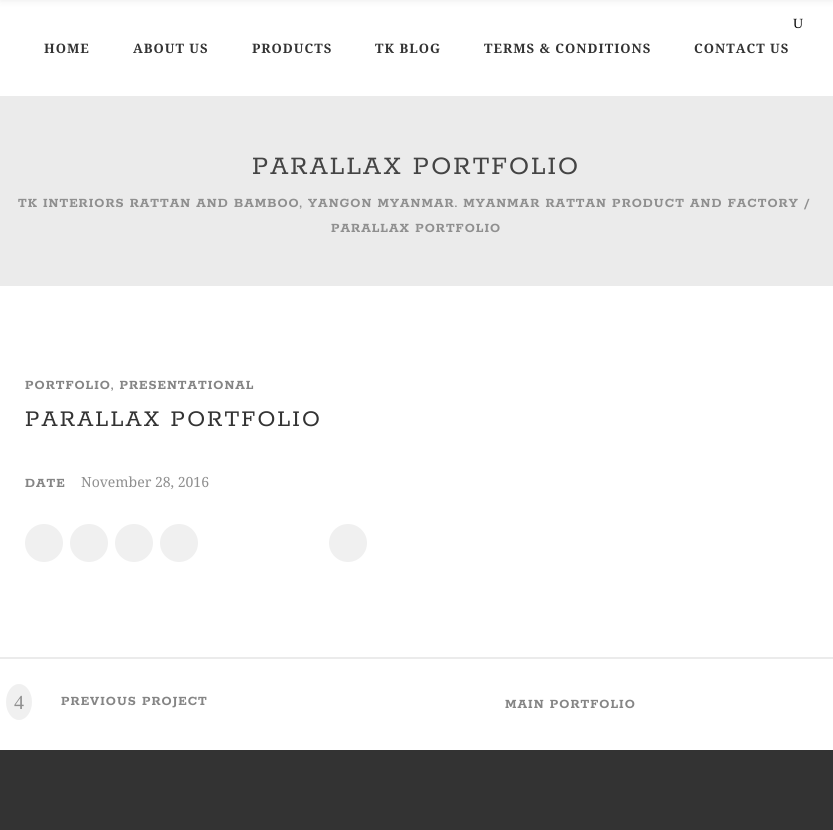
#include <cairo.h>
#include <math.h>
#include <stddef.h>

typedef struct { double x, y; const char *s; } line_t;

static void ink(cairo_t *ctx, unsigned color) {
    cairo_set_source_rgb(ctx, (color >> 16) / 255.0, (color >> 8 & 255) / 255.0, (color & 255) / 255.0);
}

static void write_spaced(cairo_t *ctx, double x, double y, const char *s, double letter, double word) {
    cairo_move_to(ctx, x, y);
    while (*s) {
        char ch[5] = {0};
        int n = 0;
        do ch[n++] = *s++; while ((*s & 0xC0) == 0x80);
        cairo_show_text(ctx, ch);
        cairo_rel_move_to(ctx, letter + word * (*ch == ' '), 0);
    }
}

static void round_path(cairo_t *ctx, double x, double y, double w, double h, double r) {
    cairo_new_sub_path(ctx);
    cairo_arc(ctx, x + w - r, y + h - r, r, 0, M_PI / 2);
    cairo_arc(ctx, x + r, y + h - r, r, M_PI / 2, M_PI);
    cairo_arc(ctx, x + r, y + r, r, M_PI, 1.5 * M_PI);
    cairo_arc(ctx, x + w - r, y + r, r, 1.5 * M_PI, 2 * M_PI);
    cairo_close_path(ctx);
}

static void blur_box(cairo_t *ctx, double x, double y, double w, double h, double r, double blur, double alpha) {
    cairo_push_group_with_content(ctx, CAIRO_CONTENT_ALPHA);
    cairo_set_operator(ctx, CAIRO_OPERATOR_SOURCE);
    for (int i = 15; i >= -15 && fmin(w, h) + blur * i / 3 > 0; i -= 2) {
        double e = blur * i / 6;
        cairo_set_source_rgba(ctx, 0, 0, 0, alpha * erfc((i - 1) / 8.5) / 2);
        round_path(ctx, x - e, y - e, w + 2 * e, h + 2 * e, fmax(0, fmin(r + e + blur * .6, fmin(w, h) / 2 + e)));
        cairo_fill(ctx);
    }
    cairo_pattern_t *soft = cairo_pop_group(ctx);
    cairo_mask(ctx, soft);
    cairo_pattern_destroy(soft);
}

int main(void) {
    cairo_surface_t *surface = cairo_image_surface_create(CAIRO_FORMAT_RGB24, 833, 830);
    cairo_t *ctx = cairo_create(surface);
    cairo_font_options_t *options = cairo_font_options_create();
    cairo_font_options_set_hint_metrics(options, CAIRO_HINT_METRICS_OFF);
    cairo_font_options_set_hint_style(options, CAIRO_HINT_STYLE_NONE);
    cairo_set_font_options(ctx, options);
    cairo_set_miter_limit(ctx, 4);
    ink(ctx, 0xFFFFFF);
    cairo_paint(ctx);
    ink(ctx, 0x000000);
    blur_box(ctx, 0, -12, 833, 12, 0, 4, 0.09);
    cairo_select_font_face(ctx, "Liberation Serif", CAIRO_FONT_SLANT_NORMAL, CAIRO_FONT_WEIGHT_NORMAL);
    cairo_set_font_size(ctx, 14);
    ink(ctx, 0x000000);
    cairo_move_to(ctx, 793, 28);
    cairo_show_text(ctx, "U");
    cairo_select_font_face(ctx, "Noto Serif", CAIRO_FONT_SLANT_NORMAL, CAIRO_FONT_WEIGHT_BOLD);
    cairo_set_font_size(ctx, 13);
    ink(ctx, 0x333333);
    {
        static const line_t items[] = {
            {44, 53, "HOME"},
            {133, 53, "ABOUT US"},
            {252, 53, "PRODUCTS"},
            {375, 53, "TK BLOG"},
            {484, 53, "TERMS & CONDITIONS"},
            {694, 53, "CONTACT US"},
        };
        for (size_t i = 0; i < sizeof items / sizeof *items; i++) {
            write_spaced(ctx, items[i].x, items[i].y, items[i].s, 1, 0);
        }
    }
    ink(ctx, 0xEBEBEB);
    cairo_rectangle(ctx, 0, 96, 833, 190);
    cairo_fill(ctx);
    cairo_select_font_face(ctx, "Rokkitt", CAIRO_FONT_SLANT_NORMAL, CAIRO_FONT_WEIGHT_NORMAL);
    cairo_set_font_size(ctx, 28);
    ink(ctx, 0x444444);
    write_spaced(ctx, 252, 174, "PARALLAX PORTFOLIO", 2, 0);
    cairo_select_font_face(ctx, "Rokkitt", CAIRO_FONT_SLANT_NORMAL, CAIRO_FONT_WEIGHT_BOLD);
    cairo_set_font_size(ctx, 14);
    ink(ctx, 0x8F8F8F);
    write_spaced(ctx, 18, 207, "TK INTERIORS RATTAN AND BAMBOO, YANGON MYANMAR. MYANMAR RATTAN PRODUCT AND FACTORY /", 1, 0);
    write_spaced(ctx, 331, 232, "PARALLAX PORTFOLIO", 1, 0);
    ink(ctx, 0x858585);
    write_spaced(ctx, 25, 389, "PORTFOLIO, PRESENTATIONAL", 1, 0);
    cairo_select_font_face(ctx, "Rokkitt", CAIRO_FONT_SLANT_NORMAL, CAIRO_FONT_WEIGHT_NORMAL);
    cairo_set_font_size(ctx, 25);
    ink(ctx, 0x333333);
    write_spaced(ctx, 25, 426, "PARALLAX PORTFOLIO", 2, 0);
    cairo_select_font_face(ctx, "Rokkitt", CAIRO_FONT_SLANT_NORMAL, CAIRO_FONT_WEIGHT_BOLD);
    cairo_set_font_size(ctx, 14);
    ink(ctx, 0x858585);
    write_spaced(ctx, 25, 487, "DATE", 1, 0);
    cairo_select_font_face(ctx, "Noto Serif", CAIRO_FONT_SLANT_NORMAL, CAIRO_FONT_WEIGHT_NORMAL);
    ink(ctx, 0x8F8F8F);
    cairo_move_to(ctx, 81, 487);
    cairo_show_text(ctx, "November 28, 2016");
    ink(ctx, 0xF0F0F0);
    cairo_new_path(ctx);
    cairo_arc(ctx, 44, 543, 19, 0, 2 * M_PI);
    cairo_fill(ctx);
    cairo_arc(ctx, 89, 543, 19, 0, 2 * M_PI);
    cairo_fill(ctx);
    cairo_arc(ctx, 134, 543, 19, 0, 2 * M_PI);
    cairo_fill(ctx);
    cairo_arc(ctx, 179, 543, 19, 0, 2 * M_PI);
    cairo_fill(ctx);
    cairo_arc(ctx, 348, 543, 19, 0, 2 * M_PI);
    cairo_fill(ctx);
    ink(ctx, 0xEBEBEB);
    cairo_rectangle(ctx, 0, 657, 833, 2);
    cairo_fill(ctx);
    ink(ctx, 0xF0F0F0);
    cairo_new_path(ctx);
    cairo_move_to(ctx, 19, 684);
    cairo_curve_to(ctx, 26, 684, 32, 692, 32, 702);
    cairo_curve_to(ctx, 32, 712, 26, 720, 19, 720);
    cairo_curve_to(ctx, 12, 720, 6, 712, 6, 702);
    cairo_curve_to(ctx, 6, 692, 12, 684, 19, 684);
    cairo_close_path(ctx);
    cairo_fill(ctx);
    cairo_select_font_face(ctx, "Liberation Serif", CAIRO_FONT_SLANT_NORMAL, CAIRO_FONT_WEIGHT_NORMAL);
    cairo_set_font_size(ctx, 20);
    ink(ctx, 0x8F8F8F);
    cairo_move_to(ctx, 14, 709);
    cairo_show_text(ctx, "4");
    cairo_select_font_face(ctx, "Rokkitt", CAIRO_FONT_SLANT_NORMAL, CAIRO_FONT_WEIGHT_BOLD);
    cairo_set_font_size(ctx, 14);
    ink(ctx, 0x858585);
    write_spaced(ctx, 61, 705, "PREVIOUS PROJECT", 1, 0);
    write_spaced(ctx, 505, 708, "MAIN PORTFOLIO", 1, 0);
    ink(ctx, 0x333333);
    cairo_rectangle(ctx, 0, 750, 833, 80);
    cairo_fill(ctx);
    cairo_surface_write_to_png(surface, "image.png");
    cairo_font_options_destroy(options);
    cairo_destroy(ctx);
    cairo_surface_destroy(surface);
    return 0;
}
